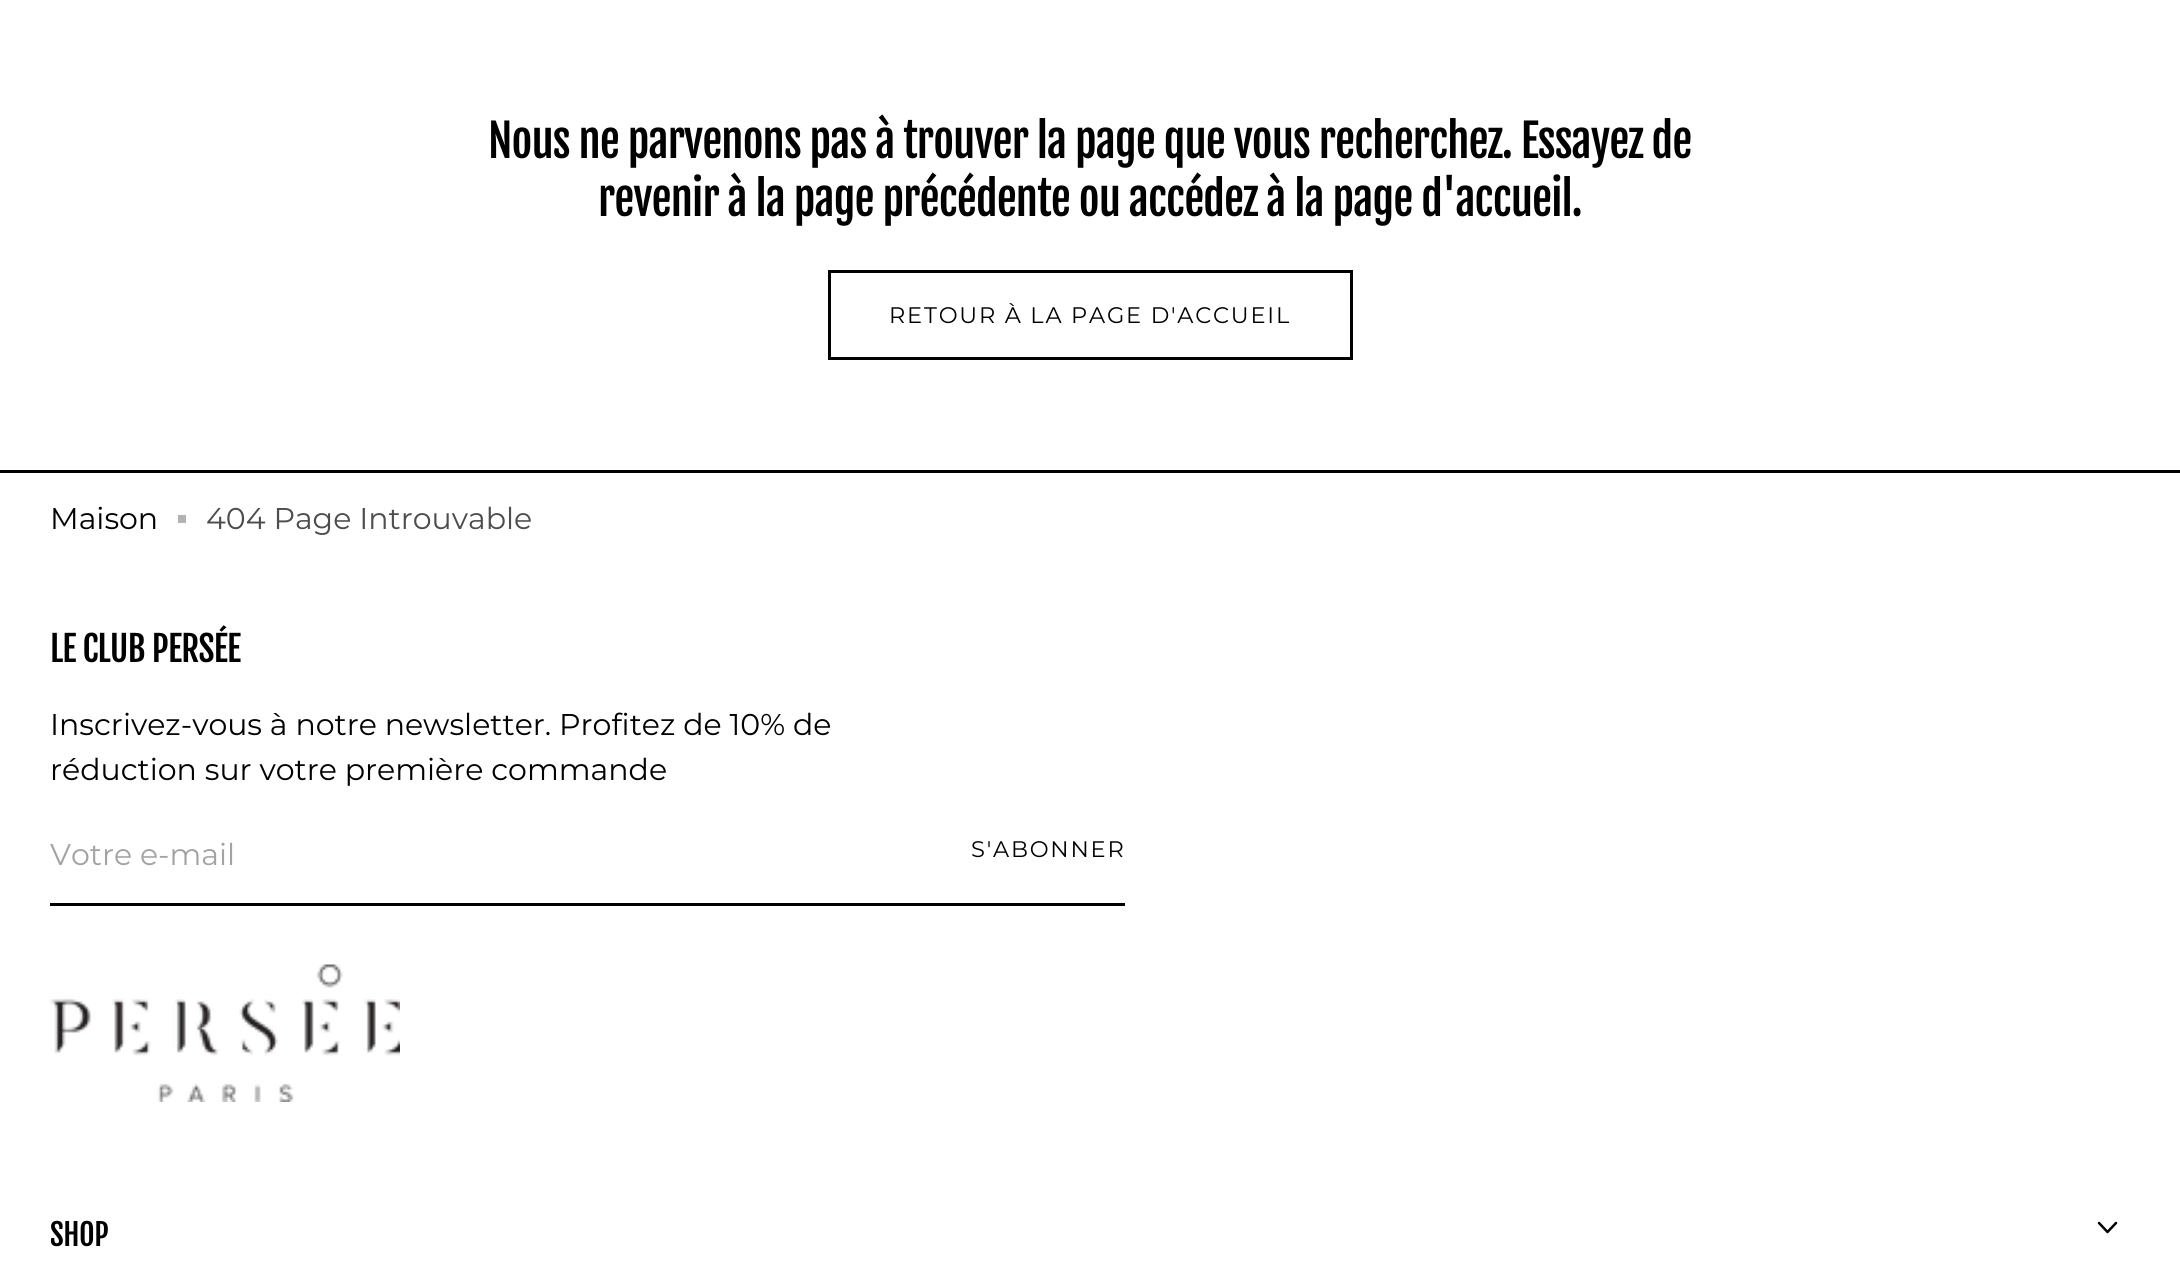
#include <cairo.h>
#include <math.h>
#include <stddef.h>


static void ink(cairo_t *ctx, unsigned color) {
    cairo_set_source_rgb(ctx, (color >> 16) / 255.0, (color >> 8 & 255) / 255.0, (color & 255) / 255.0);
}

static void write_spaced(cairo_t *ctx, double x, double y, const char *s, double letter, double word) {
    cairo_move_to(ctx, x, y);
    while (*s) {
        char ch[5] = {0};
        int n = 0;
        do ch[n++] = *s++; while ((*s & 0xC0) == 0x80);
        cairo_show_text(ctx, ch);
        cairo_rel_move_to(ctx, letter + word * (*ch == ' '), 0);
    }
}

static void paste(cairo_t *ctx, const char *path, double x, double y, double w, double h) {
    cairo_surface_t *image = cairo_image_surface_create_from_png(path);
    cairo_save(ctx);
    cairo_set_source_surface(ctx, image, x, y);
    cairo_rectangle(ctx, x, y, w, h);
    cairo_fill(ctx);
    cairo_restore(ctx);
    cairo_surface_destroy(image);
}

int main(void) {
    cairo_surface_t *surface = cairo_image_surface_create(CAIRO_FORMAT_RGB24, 2180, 1266);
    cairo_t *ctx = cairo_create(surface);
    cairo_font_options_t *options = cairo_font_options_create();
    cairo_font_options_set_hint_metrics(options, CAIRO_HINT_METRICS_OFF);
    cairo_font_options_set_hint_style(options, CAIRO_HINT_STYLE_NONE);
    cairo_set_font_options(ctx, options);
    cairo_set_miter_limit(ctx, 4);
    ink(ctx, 0xFFFFFF);
    cairo_paint(ctx);
    cairo_select_font_face(ctx, "Fjalla One", CAIRO_FONT_SLANT_NORMAL, CAIRO_FONT_WEIGHT_NORMAL);
    cairo_set_font_size(ctx, 45);
    ink(ctx, 0x000000);
    write_spaced(ctx, 488, 158, "Nous ne parvenons pas à trouver la page que vous recherchez. Essayez de", -0.9, 0);
    write_spaced(ctx, 598, 216, "revenir à la page précédente ou accédez à la page d'accueil.", -0.9, 0);
    cairo_rectangle(ctx, 829.5, 271.5, 522, 87);
    cairo_set_line_width(ctx, 3);
    cairo_stroke(ctx);
    cairo_select_font_face(ctx, "Montserrat", CAIRO_FONT_SLANT_NORMAL, CAIRO_FONT_WEIGHT_NORMAL);
    cairo_set_font_size(ctx, 22.5);
    write_spaced(ctx, 889, 323, "RETOUR À LA PAGE D'ACCUEIL", 1.8, 0);
    cairo_rectangle(ctx, 0, 470, 2180, 3);
    cairo_fill(ctx);
    cairo_set_font_size(ctx, 30);
    cairo_move_to(ctx, 50, 529);
    cairo_show_text(ctx, "Maison");
    ink(ctx, 0xB3B3B3);
    cairo_rectangle(ctx, 178, 515, 8, 8);
    cairo_fill(ctx);
    ink(ctx, 0x4D4D4D);
    cairo_move_to(ctx, 206, 529);
    cairo_show_text(ctx, "404 Page Introuvable");
    cairo_select_font_face(ctx, "Fjalla One", CAIRO_FONT_SLANT_NORMAL, CAIRO_FONT_WEIGHT_NORMAL);
    cairo_set_font_size(ctx, 35);
    ink(ctx, 0x000000);
    write_spaced(ctx, 50, 662, "LE CLUB PERSÉE", -0.75, 0);
    cairo_select_font_face(ctx, "Montserrat", CAIRO_FONT_SLANT_NORMAL, CAIRO_FONT_WEIGHT_NORMAL);
    cairo_set_font_size(ctx, 30);
    cairo_move_to(ctx, 50, 735);
    cairo_show_text(ctx, "Inscrivez-vous à notre newsletter. Profitez de 10% de");
    cairo_move_to(ctx, 50, 780);
    cairo_show_text(ctx, "réduction sur votre première commande");
    cairo_rectangle(ctx, 50, 903, 1075, 3);
    cairo_fill(ctx);
    ink(ctx, 0xA3A3A3);
    cairo_move_to(ctx, 50, 865);
    cairo_show_text(ctx, "Votre e-mail");
    cairo_set_font_size(ctx, 22.5);
    ink(ctx, 0x000000);
    write_spaced(ctx, 971, 857, "S'ABONNER", 1.8, 0);
    paste(ctx, "media/1.png", 50, 964, 350, 138);
    cairo_select_font_face(ctx, "Fjalla One", CAIRO_FONT_SLANT_NORMAL, CAIRO_FONT_WEIGHT_NORMAL);
    cairo_set_font_size(ctx, 30);
    write_spaced(ctx, 50, 1246, "SHOP", -0.5, 0);
    cairo_new_path(ctx);
    cairo_move_to(ctx, 2116, 1223);
    cairo_line_to(ctx, 2107.5, 1232);
    cairo_line_to(ctx, 2099, 1223);
    cairo_set_line_width(ctx, 2.5);
    cairo_set_line_cap(ctx, CAIRO_LINE_CAP_ROUND);
    cairo_set_line_join(ctx, CAIRO_LINE_JOIN_ROUND);
    cairo_stroke(ctx);
    cairo_surface_write_to_png(surface, "image.png");
    cairo_font_options_destroy(options);
    cairo_destroy(ctx);
    cairo_surface_destroy(surface);
    return 0;
}
